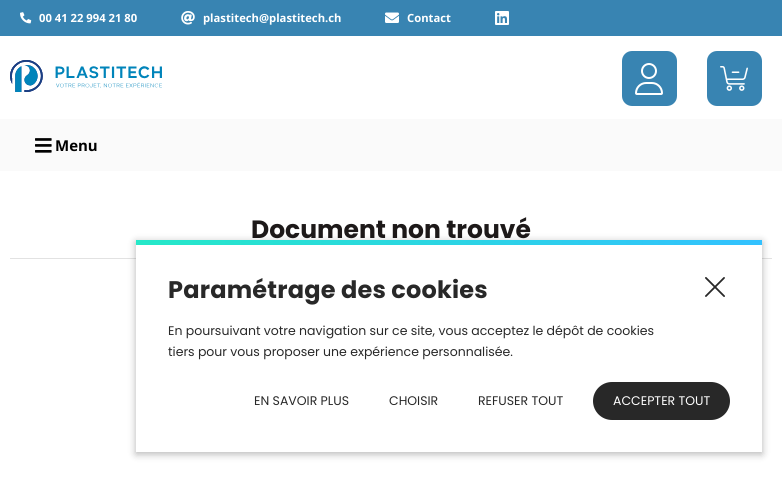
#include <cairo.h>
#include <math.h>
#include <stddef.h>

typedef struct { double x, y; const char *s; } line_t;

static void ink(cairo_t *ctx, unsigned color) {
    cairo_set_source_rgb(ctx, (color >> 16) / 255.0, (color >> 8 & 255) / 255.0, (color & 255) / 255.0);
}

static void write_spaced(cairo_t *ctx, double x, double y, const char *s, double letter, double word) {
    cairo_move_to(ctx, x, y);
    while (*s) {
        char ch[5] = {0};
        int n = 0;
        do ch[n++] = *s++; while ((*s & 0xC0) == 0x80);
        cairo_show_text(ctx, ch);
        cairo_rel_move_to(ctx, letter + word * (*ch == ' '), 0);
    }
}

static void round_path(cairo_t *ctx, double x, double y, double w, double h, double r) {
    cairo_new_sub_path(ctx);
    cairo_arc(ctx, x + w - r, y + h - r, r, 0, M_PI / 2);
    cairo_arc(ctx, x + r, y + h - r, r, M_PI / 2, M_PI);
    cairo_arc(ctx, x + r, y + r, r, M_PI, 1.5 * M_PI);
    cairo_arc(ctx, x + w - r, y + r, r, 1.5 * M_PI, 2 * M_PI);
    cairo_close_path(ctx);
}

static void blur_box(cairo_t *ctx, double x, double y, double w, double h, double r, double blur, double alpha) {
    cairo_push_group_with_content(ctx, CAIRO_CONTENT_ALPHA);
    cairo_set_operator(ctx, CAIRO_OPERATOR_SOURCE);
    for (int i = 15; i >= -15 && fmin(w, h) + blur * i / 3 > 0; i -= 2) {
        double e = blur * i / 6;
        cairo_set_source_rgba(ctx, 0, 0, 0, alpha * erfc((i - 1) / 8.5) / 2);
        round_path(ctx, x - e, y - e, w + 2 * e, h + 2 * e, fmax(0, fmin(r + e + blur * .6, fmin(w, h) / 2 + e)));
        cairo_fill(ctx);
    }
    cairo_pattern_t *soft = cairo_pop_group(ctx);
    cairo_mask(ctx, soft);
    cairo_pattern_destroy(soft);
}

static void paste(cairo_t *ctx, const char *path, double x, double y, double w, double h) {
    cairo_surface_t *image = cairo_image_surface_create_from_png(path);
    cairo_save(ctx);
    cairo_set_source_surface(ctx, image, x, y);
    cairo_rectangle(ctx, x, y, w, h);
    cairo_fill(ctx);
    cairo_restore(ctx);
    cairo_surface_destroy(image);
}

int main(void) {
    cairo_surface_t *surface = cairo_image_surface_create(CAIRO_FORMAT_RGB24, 782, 482);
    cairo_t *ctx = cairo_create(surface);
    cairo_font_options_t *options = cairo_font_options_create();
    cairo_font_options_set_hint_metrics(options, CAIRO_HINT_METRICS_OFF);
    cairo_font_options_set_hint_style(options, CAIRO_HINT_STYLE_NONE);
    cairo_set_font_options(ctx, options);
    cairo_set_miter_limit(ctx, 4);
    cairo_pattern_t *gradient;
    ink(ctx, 0xFFFFFF);
    cairo_paint(ctx);
    ink(ctx, 0x3884B2);
    cairo_rectangle(ctx, 0, 0, 782, 36);
    cairo_fill(ctx);
    paste(ctx, "media/1.png", 20, 12, 12, 12);
    cairo_select_font_face(ctx, "Open Sans", CAIRO_FONT_SLANT_NORMAL, CAIRO_FONT_WEIGHT_BOLD);
    cairo_set_font_size(ctx, 11.25);
    ink(ctx, 0xFFFFFF);
    cairo_move_to(ctx, 39, 22);
    cairo_show_text(ctx, "00 41 22 994 21 80");
    paste(ctx, "media/2.png", 181, 11, 14, 14);
    cairo_move_to(ctx, 203, 22);
    cairo_show_text(ctx, "plastitech@plastitech.ch");
    paste(ctx, "media/3.png", 385, 12, 14, 11);
    cairo_move_to(ctx, 407, 22);
    cairo_show_text(ctx, "Contact");
    paste(ctx, "media/4.png", 495, 11, 14, 14);
    paste(ctx, "media/5.png", 10, 60, 152, 32);
    ink(ctx, 0x3884B2);
    round_path(ctx, 622, 51, 55, 55, 10);
    cairo_fill(ctx);
    paste(ctx, "media/6.png", 635, 63, 28, 32);
    round_path(ctx, 707, 51, 55, 55, 10);
    cairo_fill(ctx);
    paste(ctx, "media/7.png", 720, 66, 28, 25);
    ink(ctx, 0xFAFAFA);
    cairo_rectangle(ctx, 0, 119, 782, 52);
    cairo_fill(ctx);
    paste(ctx, "media/8.png", 35, 138, 17, 15);
    cairo_set_font_size(ctx, 15);
    ink(ctx, 0x000000);
    cairo_move_to(ctx, 55, 151);
    cairo_show_text(ctx, "Menu");
    ink(ctx, 0xE2E2E2);
    cairo_rectangle(ctx, 10, 258, 762, 1);
    cairo_fill(ctx);
    cairo_select_font_face(ctx, "Poppins", CAIRO_FONT_SLANT_NORMAL, CAIRO_FONT_WEIGHT_BOLD);
    cairo_set_font_size(ctx, 25);
    ink(ctx, 0x1D1919);
    cairo_move_to(ctx, 251, 238);
    cairo_show_text(ctx, "Document non trouvé");
    ink(ctx, 0x000000);
    blur_box(ctx, 136, 242, 626, 212, 0, 4, 0.3);
    ink(ctx, 0xFFFFFF);
    cairo_rectangle(ctx, 136, 245, 626, 207);
    cairo_fill(ctx);
    gradient = cairo_pattern_create_linear(136, 243, 762, 242);
    cairo_pattern_add_color_stop_rgba(gradient, 0, 0.145, 0.91, 0.784, 1);
    cairo_pattern_add_color_stop_rgba(gradient, 1, 0.196, 0.757, 1, 1);
    cairo_set_source(ctx, gradient);
    cairo_pattern_destroy(gradient);
    cairo_rectangle(ctx, 136, 240, 626, 5);
    cairo_fill(ctx);
    cairo_set_font_size(ctx, 24);
    ink(ctx, 0x282828);
    write_spaced(ctx, 168, 298, "Paramétrage des cookies", 0.2, 0);
    paste(ctx, "media/9.png", 705, 277, 20, 20);
    cairo_select_font_face(ctx, "Poppins", CAIRO_FONT_SLANT_NORMAL, CAIRO_FONT_WEIGHT_NORMAL);
    cairo_set_font_size(ctx, 12.5);
    {
        static const line_t items[] = {
            {168, 335, "En poursuivant votre navigation sur ce site, vous acceptez le dépôt de cookies"},
            {168, 356, "tiers pour vous proposer une expérience personnalisée."},
            {254, 405, "EN SAVOIR PLUS"},
            {389, 405, "CHOISIR"},
            {478, 405, "REFUSER TOUT"},
        };
        for (size_t i = 0; i < sizeof items / sizeof *items; i++) {
            cairo_move_to(ctx, items[i].x, items[i].y);
            cairo_show_text(ctx, items[i].s);
        }
    }
    round_path(ctx, 593, 382, 137, 38, 19);
    cairo_fill(ctx);
    ink(ctx, 0xFFFFFF);
    cairo_move_to(ctx, 613, 405);
    cairo_show_text(ctx, "ACCEPTER TOUT");
    cairo_surface_write_to_png(surface, "image.png");
    cairo_font_options_destroy(options);
    cairo_destroy(ctx);
    cairo_surface_destroy(surface);
    return 0;
}
